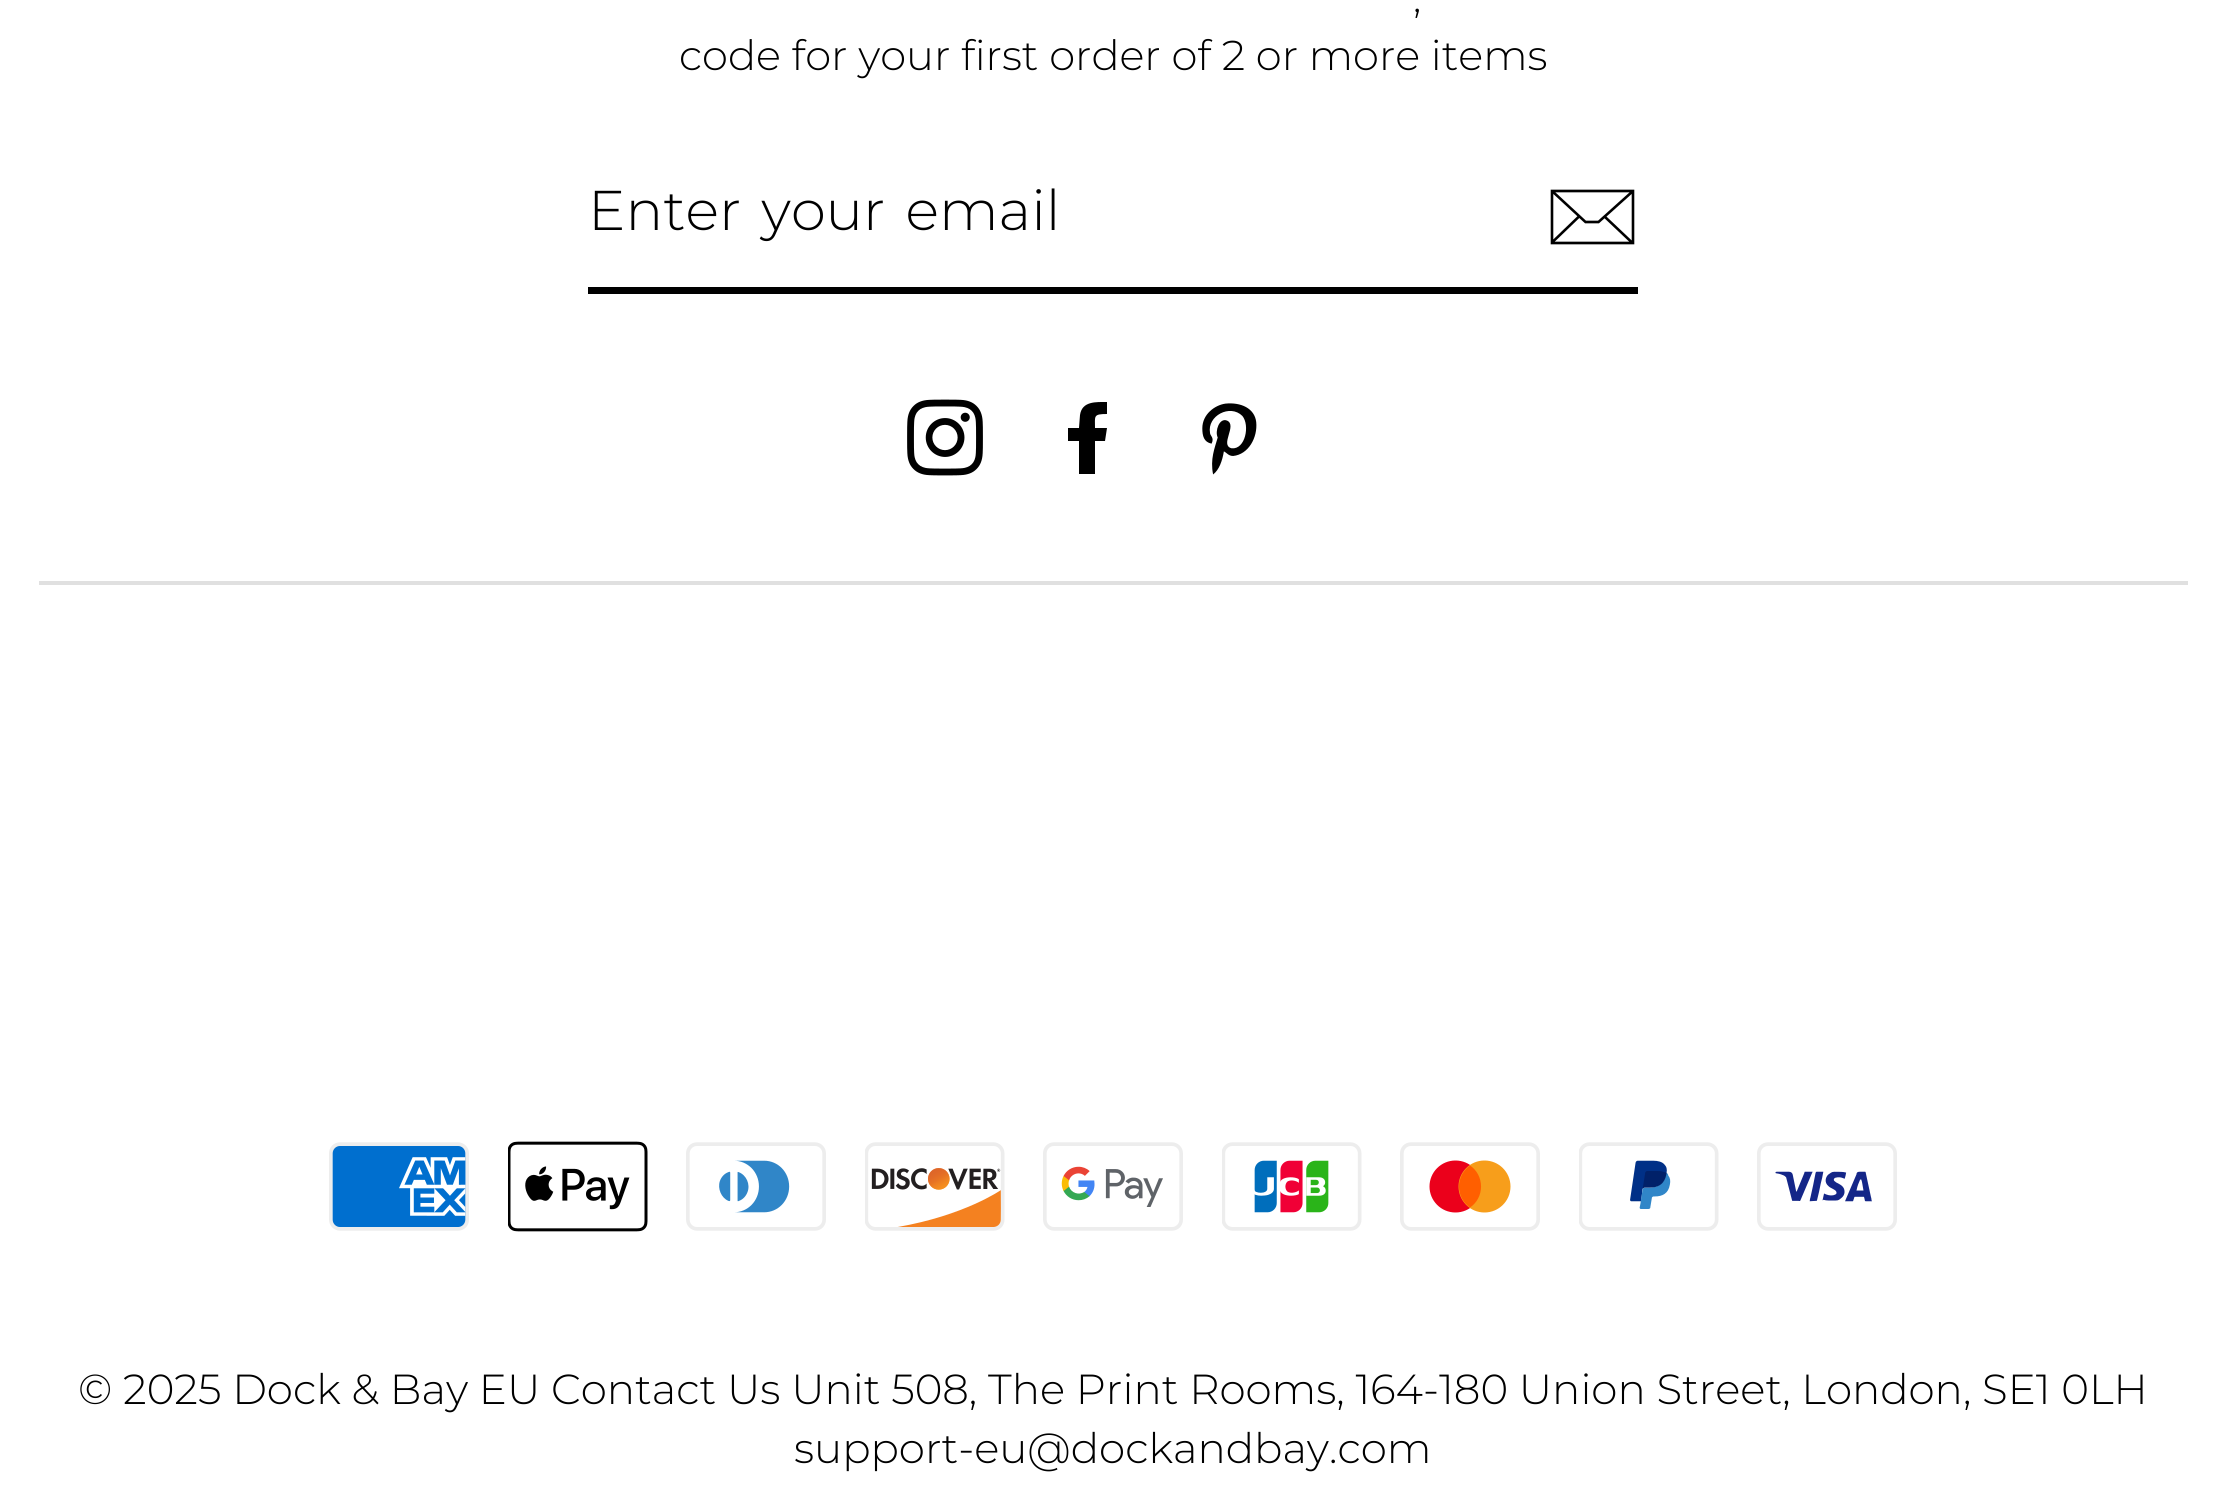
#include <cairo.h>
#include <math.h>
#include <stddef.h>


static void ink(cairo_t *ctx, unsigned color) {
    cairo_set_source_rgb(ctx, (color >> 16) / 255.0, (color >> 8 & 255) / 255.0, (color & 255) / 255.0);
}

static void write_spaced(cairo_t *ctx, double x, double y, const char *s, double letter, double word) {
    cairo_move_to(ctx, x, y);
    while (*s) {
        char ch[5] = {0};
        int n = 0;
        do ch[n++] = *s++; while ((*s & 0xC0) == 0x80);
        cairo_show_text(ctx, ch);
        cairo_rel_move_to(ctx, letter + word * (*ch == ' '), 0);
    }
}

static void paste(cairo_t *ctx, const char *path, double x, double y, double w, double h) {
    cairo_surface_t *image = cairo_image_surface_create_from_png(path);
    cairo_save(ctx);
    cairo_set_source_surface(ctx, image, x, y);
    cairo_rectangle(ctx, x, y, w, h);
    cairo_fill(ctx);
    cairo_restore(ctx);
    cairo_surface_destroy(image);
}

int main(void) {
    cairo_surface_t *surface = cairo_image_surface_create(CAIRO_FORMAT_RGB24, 2225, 1504);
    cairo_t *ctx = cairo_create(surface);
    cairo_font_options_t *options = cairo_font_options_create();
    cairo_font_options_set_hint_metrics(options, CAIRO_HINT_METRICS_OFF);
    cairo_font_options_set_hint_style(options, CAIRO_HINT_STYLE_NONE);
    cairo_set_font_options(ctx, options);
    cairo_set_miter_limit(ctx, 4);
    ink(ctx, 0xFFFFFF);
    cairo_paint(ctx);
    cairo_select_font_face(ctx, "Montserrat Light", CAIRO_FONT_SLANT_NORMAL, CAIRO_FONT_WEIGHT_NORMAL);
    cairo_set_font_size(ctx, 41.65);
    ink(ctx, 0x000000);
    cairo_move_to(ctx, 1413, 12);
    cairo_show_text(ctx, ",");
    cairo_move_to(ctx, 679, 70);
    cairo_show_text(ctx, "code for your first order of 2 or more items");
    cairo_rectangle(ctx, 588, 287, 1050, 7);
    cairo_fill(ctx);
    cairo_set_font_size(ctx, 56);
    write_spaced(ctx, 588, 230, "Enter your email", 0, 6);
    cairo_new_path(ctx);
    cairo_move_to(ctx, 1633, 243);
    cairo_line_to(ctx, 1552, 243);
    cairo_line_to(ctx, 1552, 191);
    cairo_line_to(ctx, 1633, 191);
    cairo_close_path(ctx);
    cairo_move_to(ctx, 1552, 191);
    cairo_line_to(ctx, 1585.5, 222);
    cairo_line_to(ctx, 1598.5, 222);
    cairo_line_to(ctx, 1633, 191);
    cairo_move_to(ctx, 1579, 216.5);
    cairo_line_to(ctx, 1552.5, 242);
    cairo_move_to(ctx, 1632.5, 243);
    cairo_line_to(ctx, 1604.5, 216.5);
    cairo_set_line_width(ctx, 2.6);
    cairo_stroke(ctx);
    paste(ctx, "media/1.png", 907, 399, 76, 77);
    cairo_new_path(ctx);
    cairo_move_to(ctx, 1095, 474);
    cairo_line_to(ctx, 1095, 441);
    cairo_line_to(ctx, 1105, 441);
    cairo_line_to(ctx, 1107, 428);
    cairo_line_to(ctx, 1095, 428);
    cairo_curve_to(ctx, 1095, 416, 1093, 414, 1107, 414);
    cairo_line_to(ctx, 1107, 402);
    cairo_curve_to(ctx, 1096, 402, 1082, 401, 1080, 415);
    cairo_line_to(ctx, 1079, 428);
    cairo_line_to(ctx, 1068, 428);
    cairo_line_to(ctx, 1068, 441);
    cairo_line_to(ctx, 1079, 441);
    cairo_line_to(ctx, 1079, 474);
    cairo_close_path(ctx);
    cairo_fill(ctx);
    paste(ctx, "media/2.png", 1202, 403, 55, 72);
    ink(ctx, 0xE0E0E0);
    cairo_rectangle(ctx, 39, 581, 2149, 4);
    cairo_fill(ctx);
    paste(ctx, "media/3.png", 329, 1142, 140, 89);
    paste(ctx, "media/4.png", 508, 1141, 140, 91);
    paste(ctx, "media/5.png", 686, 1142, 140, 89);
    paste(ctx, "media/6.png", 865, 1142, 140, 89);
    paste(ctx, "media/7.png", 1043, 1142, 140, 89);
    paste(ctx, "media/8.png", 1222, 1142, 140, 89);
    paste(ctx, "media/9.png", 1400, 1142, 140, 89);
    paste(ctx, "media/10.png", 1579, 1142, 140, 89);
    paste(ctx, "media/11.png", 1757, 1142, 140, 89);
    cairo_set_font_size(ctx, 42);
    ink(ctx, 0x000000);
    cairo_move_to(ctx, 78, 1404);
    cairo_show_text(ctx, "© 2025 Dock & Bay EU Contact Us Unit 508, The Print Rooms, 164-180 Union Street, London, SE1 0LH");
    cairo_move_to(ctx, 794, 1463);
    cairo_show_text(ctx, "support-eu@dockandbay.com");
    cairo_surface_write_to_png(surface, "image.png");
    cairo_font_options_destroy(options);
    cairo_destroy(ctx);
    cairo_surface_destroy(surface);
    return 0;
}
